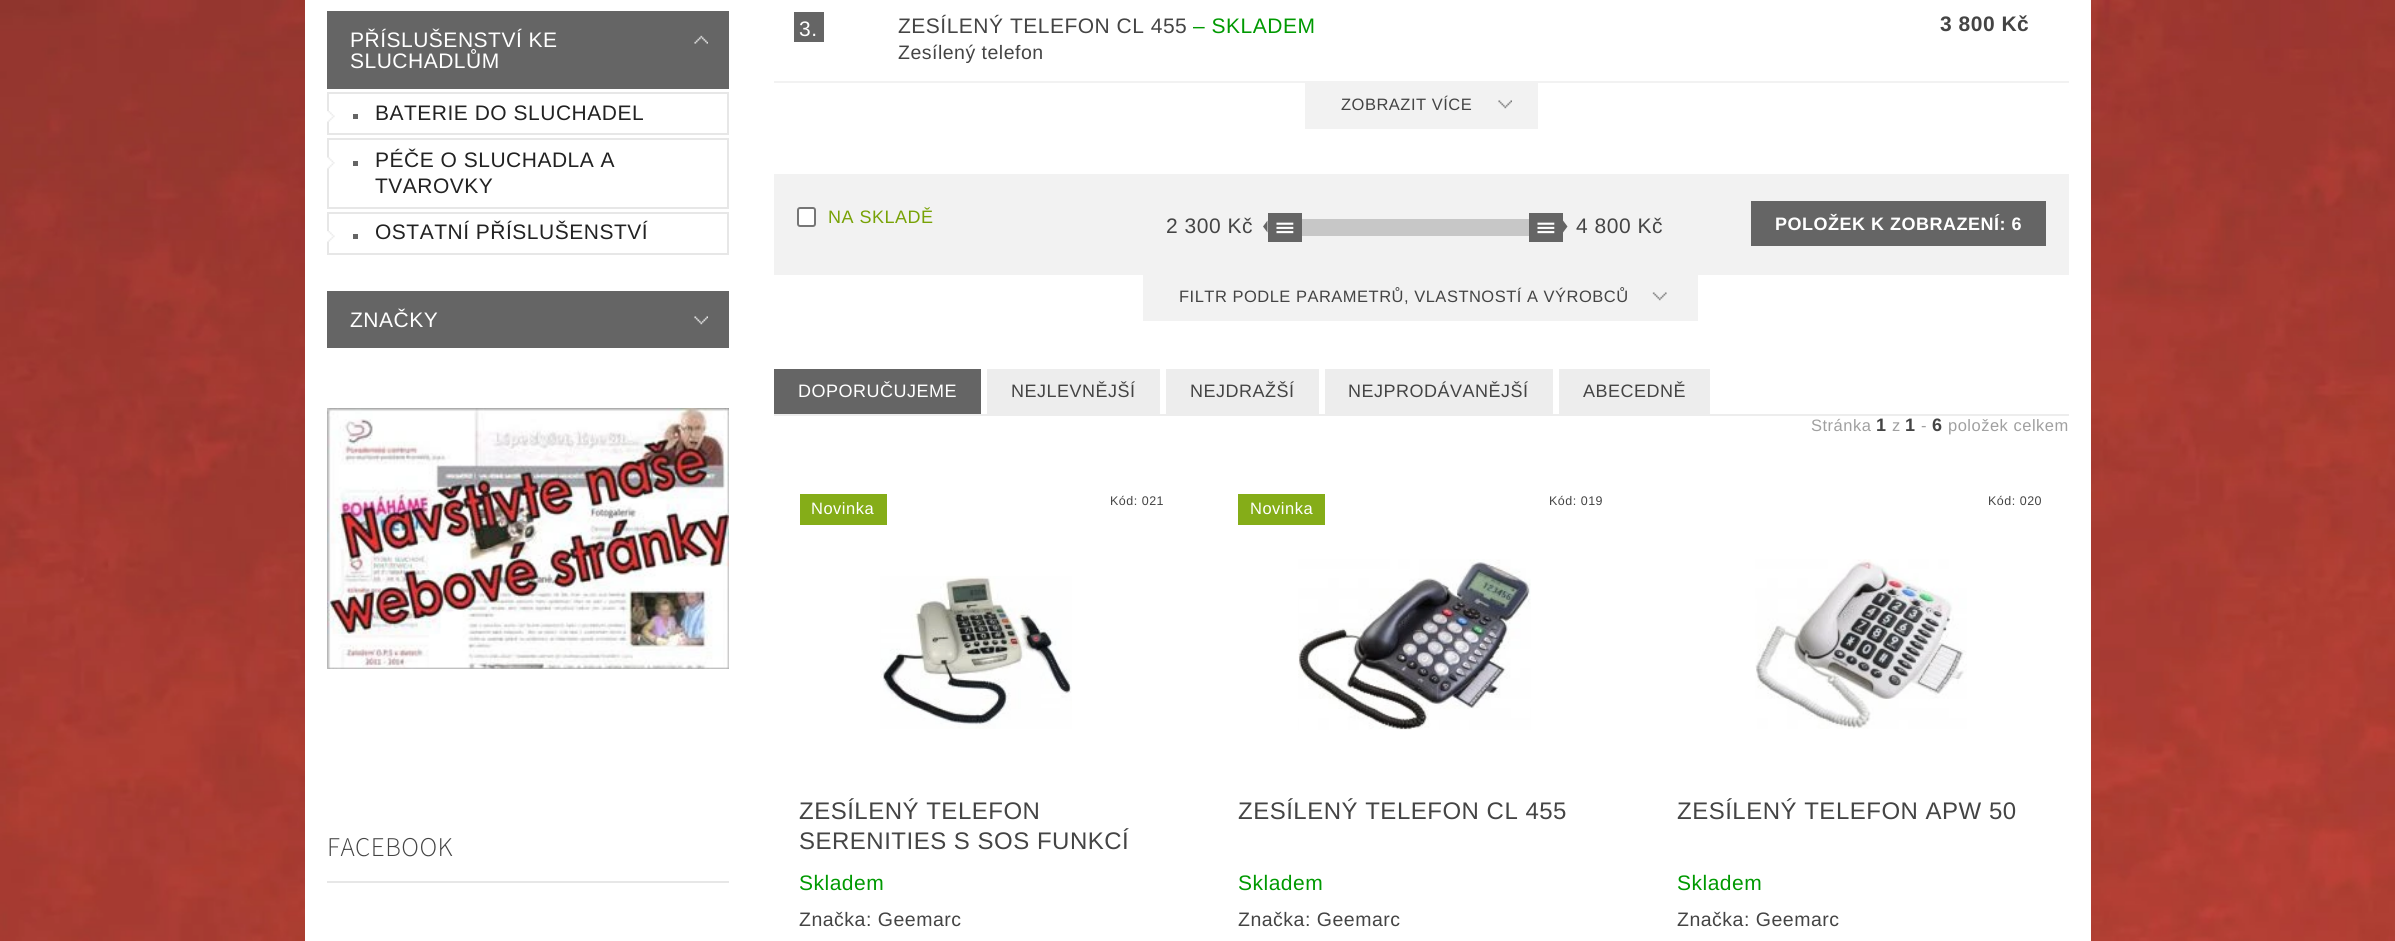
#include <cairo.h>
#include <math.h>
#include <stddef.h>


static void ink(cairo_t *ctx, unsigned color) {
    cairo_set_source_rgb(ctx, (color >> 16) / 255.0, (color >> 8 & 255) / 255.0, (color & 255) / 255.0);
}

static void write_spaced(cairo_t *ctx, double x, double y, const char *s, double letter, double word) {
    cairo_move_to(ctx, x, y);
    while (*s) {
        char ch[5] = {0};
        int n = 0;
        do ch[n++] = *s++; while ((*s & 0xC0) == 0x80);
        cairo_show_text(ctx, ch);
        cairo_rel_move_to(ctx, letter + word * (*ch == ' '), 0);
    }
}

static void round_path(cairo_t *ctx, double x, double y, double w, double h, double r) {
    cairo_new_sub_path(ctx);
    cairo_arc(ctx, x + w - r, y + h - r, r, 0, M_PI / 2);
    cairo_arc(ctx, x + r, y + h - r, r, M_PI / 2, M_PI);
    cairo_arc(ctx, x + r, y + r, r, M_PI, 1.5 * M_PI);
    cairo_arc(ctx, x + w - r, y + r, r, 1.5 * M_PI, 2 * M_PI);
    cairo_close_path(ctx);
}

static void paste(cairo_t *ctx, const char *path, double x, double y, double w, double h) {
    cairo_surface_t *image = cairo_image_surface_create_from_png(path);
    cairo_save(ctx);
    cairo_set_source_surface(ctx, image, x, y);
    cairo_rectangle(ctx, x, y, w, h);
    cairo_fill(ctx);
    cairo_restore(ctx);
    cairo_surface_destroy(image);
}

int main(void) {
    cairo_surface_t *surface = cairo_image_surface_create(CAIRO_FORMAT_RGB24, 2395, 941);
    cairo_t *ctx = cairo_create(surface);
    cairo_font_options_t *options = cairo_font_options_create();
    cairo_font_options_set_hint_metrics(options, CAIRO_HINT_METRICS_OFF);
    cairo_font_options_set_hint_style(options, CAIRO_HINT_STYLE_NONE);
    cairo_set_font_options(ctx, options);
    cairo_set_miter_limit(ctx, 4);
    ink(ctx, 0xFFFFFF);
    cairo_paint(ctx);
    paste(ctx, "media/1.png", 0, 0, 2395, 941);
    ink(ctx, 0xFFFFFF);
    cairo_rectangle(ctx, 305, 0, 1786, 941);
    cairo_fill(ctx);
    ink(ctx, 0x656565);
    cairo_rectangle(ctx, 327, 11, 402, 78);
    cairo_fill(ctx);
    paste(ctx, "media/2.png", 694, 35, 14, 9);
    cairo_select_font_face(ctx, "Liberation Sans", CAIRO_FONT_SLANT_NORMAL, CAIRO_FONT_WEIGHT_NORMAL);
    cairo_set_font_size(ctx, 21);
    ink(ctx, 0xFFFFFF);
    write_spaced(ctx, 350, 47, "PŘÍSLUŠENSTVÍ KE", 0.5, 0);
    write_spaced(ctx, 350, 68, "SLUCHADLŮM", 0.5, 0);
    cairo_rectangle(ctx, 328, 93, 400, 41);
    ink(ctx, 0xE7E7E7);
    cairo_stroke(ctx);
    paste(ctx, "media/3.png", 327, 111, 8, 11);
    ink(ctx, 0x656565);
    cairo_rectangle(ctx, 353, 114, 5, 5);
    cairo_fill(ctx);
    ink(ctx, 0x222222);
    write_spaced(ctx, 375, 120, "BATERIE DO SLUCHADEL", 0.5, 0);
    cairo_rectangle(ctx, 328, 139, 400, 69);
    ink(ctx, 0xE7E7E7);
    cairo_stroke(ctx);
    paste(ctx, "media/4.png", 327, 157, 8, 12);
    ink(ctx, 0x656565);
    cairo_rectangle(ctx, 353, 161, 5, 5);
    cairo_fill(ctx);
    ink(ctx, 0x222222);
    write_spaced(ctx, 375, 167, "PÉČE O SLUCHADLA A", 0.5, 0);
    write_spaced(ctx, 375, 193, "TVAROVKY", 0.5, 0);
    cairo_rectangle(ctx, 328, 213, 400, 41);
    ink(ctx, 0xE7E7E7);
    cairo_stroke(ctx);
    paste(ctx, "media/3.png", 327, 231, 8, 11);
    ink(ctx, 0x656565);
    cairo_rectangle(ctx, 353, 234, 5, 5);
    cairo_fill(ctx);
    ink(ctx, 0x222222);
    write_spaced(ctx, 375, 239, "OSTATNÍ PŘÍSLUŠENSTVÍ", 0.5, 0);
    ink(ctx, 0x656565);
    cairo_rectangle(ctx, 327, 291, 402, 57);
    cairo_fill(ctx);
    paste(ctx, "media/5.png", 694, 316, 14, 9);
    ink(ctx, 0xFFFFFF);
    write_spaced(ctx, 350, 327, "ZNAČKY", 0.5, 0);
    paste(ctx, "media/6.png", 327, 408, 402, 261);
    ink(ctx, 0xE7E7E7);
    cairo_rectangle(ctx, 327, 881, 402, 2);
    cairo_fill(ctx);
    cairo_select_font_face(ctx, "Source Sans 3 Light", CAIRO_FONT_SLANT_NORMAL, CAIRO_FONT_WEIGHT_NORMAL);
    cairo_set_font_size(ctx, 27);
    ink(ctx, 0x444444);
    write_spaced(ctx, 327, 856, "FACEBOOK", 0.5, 0);
    ink(ctx, 0xF2F2F2);
    cairo_rectangle(ctx, 774, 81, 1295, 2);
    cairo_fill(ctx);
    ink(ctx, 0x656565);
    cairo_rectangle(ctx, 794, 12, 30, 30);
    cairo_fill(ctx);
    cairo_select_font_face(ctx, "Liberation Sans", CAIRO_FONT_SLANT_NORMAL, CAIRO_FONT_WEIGHT_NORMAL);
    cairo_set_font_size(ctx, 21);
    ink(ctx, 0xFFFFFF);
    write_spaced(ctx, 799, 36, "3.", 0.5, 0);
    ink(ctx, 0x444444);
    write_spaced(ctx, 898, 33, "ZESÍLENÝ TELEFON CL 455", 0.5, 0);
    ink(ctx, 0x009901);
    write_spaced(ctx, 1193, 33, "– SKLADEM", 0.5, 0);
    cairo_set_font_size(ctx, 19.5);
    ink(ctx, 0x444444);
    write_spaced(ctx, 898, 59, "Zesílený telefon", 0.5, 0);
    cairo_select_font_face(ctx, "Liberation Sans", CAIRO_FONT_SLANT_NORMAL, CAIRO_FONT_WEIGHT_BOLD);
    cairo_set_font_size(ctx, 21);
    write_spaced(ctx, 1940, 31, "3 800 Kč", 0.5, 0);
    ink(ctx, 0xF2F2F2);
    cairo_rectangle(ctx, 1305, 83, 233, 46);
    cairo_fill(ctx);
    paste(ctx, "media/7.png", 1498, 100, 14, 9);
    cairo_select_font_face(ctx, "Liberation Sans", CAIRO_FONT_SLANT_NORMAL, CAIRO_FONT_WEIGHT_NORMAL);
    cairo_set_font_size(ctx, 16.5);
    ink(ctx, 0x444444);
    write_spaced(ctx, 1341, 110, "ZOBRAZIT VÍCE", 0.5, 0);
    ink(ctx, 0xF2F2F2);
    cairo_rectangle(ctx, 774, 174, 1295, 101);
    cairo_fill(ctx);
    ink(ctx, 0xFFFFFF);
    round_path(ctx, 798, 208, 17, 18, 2);
    cairo_fill_preserve(ctx);
    ink(ctx, 0x767676);
    cairo_stroke(ctx);
    cairo_set_font_size(ctx, 18);
    ink(ctx, 0x78A206);
    write_spaced(ctx, 828, 223, "NA SKLADĚ", 0.5, 0);
    cairo_set_font_size(ctx, 21);
    ink(ctx, 0x444444);
    write_spaced(ctx, 1166, 233, "2 300 Kč", 0.5, 0);
    ink(ctx, 0x656565);
    cairo_rectangle(ctx, 1268, 213, 34, 29);
    cairo_fill(ctx);
    cairo_new_path(ctx);
    cairo_move_to(ctx, 1267.5, 220.5);
    cairo_line_to(ctx, 1267.5, 232.5);
    cairo_line_to(ctx, 1263, 226.5);
    cairo_close_path(ctx);
    cairo_fill(ctx);
    paste(ctx, "media/8.png", 1276, 222, 18, 12);
    ink(ctx, 0xC7C7C7);
    cairo_rectangle(ctx, 1302, 219, 227, 17);
    cairo_fill(ctx);
    ink(ctx, 0x656565);
    cairo_rectangle(ctx, 1529, 213, 34, 29);
    cairo_fill(ctx);
    paste(ctx, "media/8.png", 1537, 222, 18, 12);
    cairo_new_path(ctx);
    cairo_move_to(ctx, 1563, 232.5);
    cairo_line_to(ctx, 1563, 220.5);
    cairo_line_to(ctx, 1567.5, 226.5);
    cairo_close_path(ctx);
    cairo_fill(ctx);
    ink(ctx, 0x444444);
    write_spaced(ctx, 1576, 233, "4 800 Kč", 0.5, 0);
    ink(ctx, 0x656565);
    cairo_rectangle(ctx, 1751, 201, 295, 45);
    cairo_fill(ctx);
    cairo_select_font_face(ctx, "Liberation Sans", CAIRO_FONT_SLANT_NORMAL, CAIRO_FONT_WEIGHT_BOLD);
    cairo_set_font_size(ctx, 18);
    ink(ctx, 0xFFFFFF);
    write_spaced(ctx, 1775, 230, "POLOŽEK K ZOBRAZENÍ: 6", 0.5, 0);
    ink(ctx, 0xF2F2F2);
    cairo_rectangle(ctx, 1143, 275, 555, 46);
    cairo_fill(ctx);
    paste(ctx, "media/9.png", 1652, 292, 15, 9);
    cairo_select_font_face(ctx, "Liberation Sans", CAIRO_FONT_SLANT_NORMAL, CAIRO_FONT_WEIGHT_NORMAL);
    cairo_set_font_size(ctx, 16.5);
    ink(ctx, 0x444444);
    write_spaced(ctx, 1179, 302, "FILTR PODLE PARAMETRŮ, VLASTNOSTÍ A VÝROBCŮ", 0.5, 0);
    ink(ctx, 0xEDEDED);
    cairo_rectangle(ctx, 774, 414, 1295, 2);
    cairo_fill(ctx);
    ink(ctx, 0x656565);
    cairo_rectangle(ctx, 774, 369, 207, 45);
    cairo_fill(ctx);
    cairo_set_font_size(ctx, 18);
    ink(ctx, 0xFFFFFF);
    write_spaced(ctx, 798, 397, "DOPORUČUJEME", 0.5, 0);
    ink(ctx, 0xEDEDED);
    cairo_rectangle(ctx, 987, 369, 173, 45);
    cairo_fill(ctx);
    ink(ctx, 0x444444);
    write_spaced(ctx, 1011, 397, "NEJLEVNĚJŠÍ", 0.5, 0);
    ink(ctx, 0xEDEDED);
    cairo_rectangle(ctx, 1166, 369, 153, 45);
    cairo_fill(ctx);
    ink(ctx, 0x444444);
    write_spaced(ctx, 1190, 397, "NEJDRAŽŠÍ", 0.5, 0);
    ink(ctx, 0xEDEDED);
    cairo_rectangle(ctx, 1325, 369, 228, 45);
    cairo_fill(ctx);
    ink(ctx, 0x444444);
    write_spaced(ctx, 1348, 397, "NEJPRODÁVANĚJŠÍ", 0.5, 0);
    ink(ctx, 0xEDEDED);
    cairo_rectangle(ctx, 1559, 369, 151, 45);
    cairo_fill(ctx);
    ink(ctx, 0x444444);
    write_spaced(ctx, 1583, 397, "ABECEDNĚ", 0.5, 0);
    cairo_set_font_size(ctx, 16.5);
    ink(ctx, 0xA0A0A0);
    write_spaced(ctx, 1811, 431, "Stránka", 0.5, 0);
    cairo_select_font_face(ctx, "Liberation Sans", CAIRO_FONT_SLANT_NORMAL, CAIRO_FONT_WEIGHT_BOLD);
    cairo_set_font_size(ctx, 18);
    ink(ctx, 0x444444);
    write_spaced(ctx, 1876, 431, "1", 0.5, 0);
    cairo_select_font_face(ctx, "Liberation Sans", CAIRO_FONT_SLANT_NORMAL, CAIRO_FONT_WEIGHT_NORMAL);
    cairo_set_font_size(ctx, 16.5);
    ink(ctx, 0xA0A0A0);
    write_spaced(ctx, 1892, 431, "z", 0.5, 0);
    cairo_select_font_face(ctx, "Liberation Sans", CAIRO_FONT_SLANT_NORMAL, CAIRO_FONT_WEIGHT_BOLD);
    cairo_set_font_size(ctx, 18);
    ink(ctx, 0x444444);
    write_spaced(ctx, 1905, 431, "1", 0.5, 0);
    cairo_select_font_face(ctx, "Liberation Sans", CAIRO_FONT_SLANT_NORMAL, CAIRO_FONT_WEIGHT_NORMAL);
    cairo_set_font_size(ctx, 16.5);
    ink(ctx, 0xA0A0A0);
    write_spaced(ctx, 1921, 431, "-", 0.5, 0);
    cairo_select_font_face(ctx, "Liberation Sans", CAIRO_FONT_SLANT_NORMAL, CAIRO_FONT_WEIGHT_BOLD);
    cairo_set_font_size(ctx, 18);
    ink(ctx, 0x444444);
    write_spaced(ctx, 1932, 431, "6", 0.5, 0);
    cairo_select_font_face(ctx, "Liberation Sans", CAIRO_FONT_SLANT_NORMAL, CAIRO_FONT_WEIGHT_NORMAL);
    cairo_set_font_size(ctx, 16.5);
    ink(ctx, 0xA0A0A0);
    write_spaced(ctx, 1948, 431, "položek celkem", 0.5, 0);
    cairo_set_font_size(ctx, 12.5);
    ink(ctx, 0x444444);
    write_spaced(ctx, 1110, 505, "Kód: 021", 0.5, 0);
    ink(ctx, 0x85AD18);
    cairo_rectangle(ctx, 800, 494, 87, 31);
    cairo_fill(ctx);
    cairo_set_font_size(ctx, 16.5);
    ink(ctx, 0xFFFFFF);
    write_spaced(ctx, 811, 514, "Novinka", 0.5, 0);
    paste(ctx, "media/10.png", 880, 576, 192, 153);
    cairo_set_font_size(ctx, 24);
    ink(ctx, 0x444444);
    write_spaced(ctx, 799, 819, "ZESÍLENÝ TELEFON", 0.5, 0);
    write_spaced(ctx, 799, 849, "SERENITIES S SOS FUNKCÍ", 0.5, 0);
    cairo_set_font_size(ctx, 21);
    ink(ctx, 0x009901);
    write_spaced(ctx, 799, 890, "Skladem", 0.5, 0);
    cairo_set_font_size(ctx, 19.5);
    ink(ctx, 0x444444);
    write_spaced(ctx, 799, 926, "Značka: Geemarc", 0.5, 0);
    cairo_set_font_size(ctx, 12.5);
    write_spaced(ctx, 1549, 505, "Kód: 019", 0.5, 0);
    ink(ctx, 0x85AD18);
    cairo_rectangle(ctx, 1238, 494, 87, 31);
    cairo_fill(ctx);
    cairo_set_font_size(ctx, 16.5);
    ink(ctx, 0xFFFFFF);
    write_spaced(ctx, 1250, 514, "Novinka", 0.5, 0);
    paste(ctx, "media/11.png", 1298, 559, 233, 171);
    cairo_set_font_size(ctx, 24);
    ink(ctx, 0x444444);
    write_spaced(ctx, 1238, 819, "ZESÍLENÝ TELEFON CL 455", 0.5, 0);
    cairo_set_font_size(ctx, 21);
    ink(ctx, 0x009901);
    write_spaced(ctx, 1238, 890, "Skladem", 0.5, 0);
    cairo_set_font_size(ctx, 19.5);
    ink(ctx, 0x444444);
    write_spaced(ctx, 1238, 926, "Značka: Geemarc", 0.5, 0);
    cairo_set_font_size(ctx, 12.5);
    write_spaced(ctx, 1988, 505, "Kód: 020", 0.5, 0);
    paste(ctx, "media/12.png", 1755, 559, 212, 170);
    cairo_set_font_size(ctx, 24);
    write_spaced(ctx, 1677, 819, "ZESÍLENÝ TELEFON APW 50", 0.5, 0);
    cairo_set_font_size(ctx, 21);
    ink(ctx, 0x009901);
    write_spaced(ctx, 1677, 890, "Skladem", 0.5, 0);
    cairo_set_font_size(ctx, 19.5);
    ink(ctx, 0x444444);
    write_spaced(ctx, 1677, 926, "Značka: Geemarc", 0.5, 0);
    cairo_surface_write_to_png(surface, "image.png");
    cairo_font_options_destroy(options);
    cairo_destroy(ctx);
    cairo_surface_destroy(surface);
    return 0;
}
